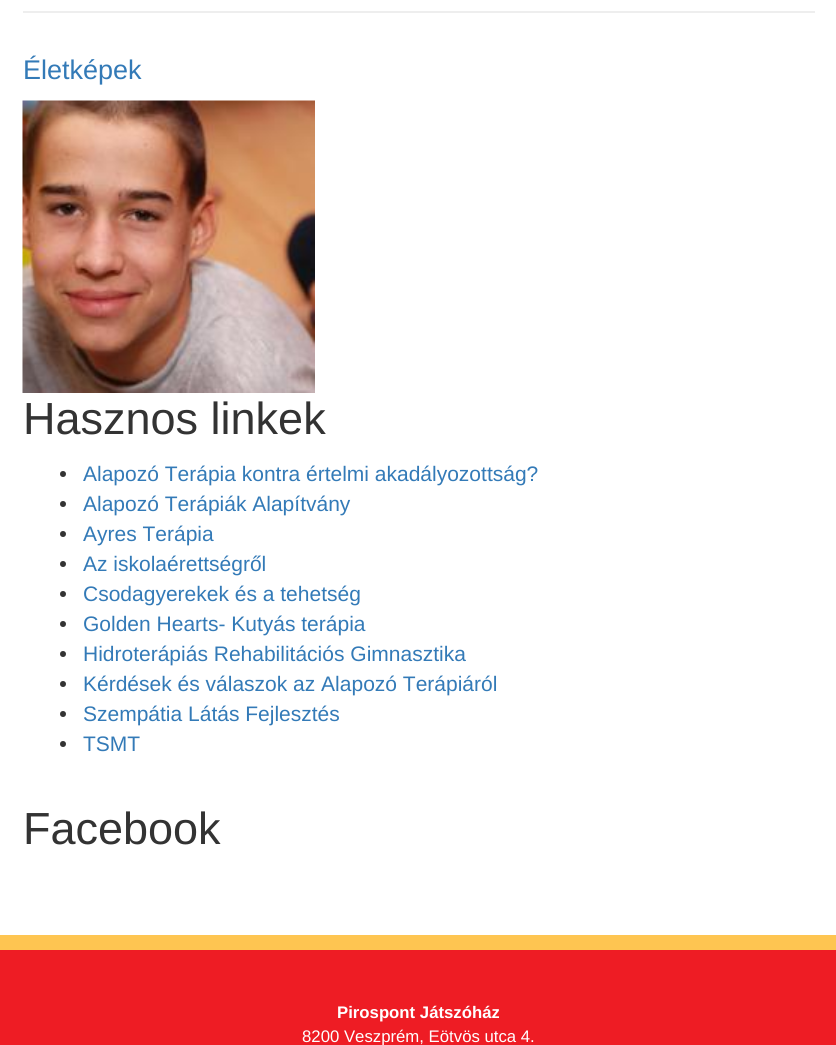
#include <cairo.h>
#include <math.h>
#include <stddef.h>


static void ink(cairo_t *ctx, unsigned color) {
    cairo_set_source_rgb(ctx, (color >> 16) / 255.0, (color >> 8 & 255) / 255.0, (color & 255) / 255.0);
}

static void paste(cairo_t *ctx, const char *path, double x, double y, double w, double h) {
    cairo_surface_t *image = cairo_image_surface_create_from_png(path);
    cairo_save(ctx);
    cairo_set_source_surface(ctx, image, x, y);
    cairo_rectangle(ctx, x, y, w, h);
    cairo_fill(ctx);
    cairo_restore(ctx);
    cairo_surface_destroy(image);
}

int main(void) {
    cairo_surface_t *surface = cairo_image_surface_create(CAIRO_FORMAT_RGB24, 836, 1045);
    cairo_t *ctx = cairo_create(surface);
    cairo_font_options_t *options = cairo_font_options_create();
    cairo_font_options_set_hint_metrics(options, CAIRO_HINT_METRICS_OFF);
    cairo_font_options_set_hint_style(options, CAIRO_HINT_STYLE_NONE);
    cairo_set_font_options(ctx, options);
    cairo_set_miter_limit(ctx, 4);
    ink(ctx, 0xFFFFFF);
    cairo_paint(ctx);
    ink(ctx, 0xEEEEEE);
    cairo_rectangle(ctx, 23, 11, 792, 2);
    cairo_fill(ctx);
    cairo_select_font_face(ctx, "Liberation Sans", CAIRO_FONT_SLANT_NORMAL, CAIRO_FONT_WEIGHT_NORMAL);
    cairo_set_font_size(ctx, 27);
    ink(ctx, 0x337AB7);
    cairo_move_to(ctx, 23, 79);
    cairo_show_text(ctx, "Életképek");
    paste(ctx, "media/1.png", 22, 100, 293, 293);
    cairo_set_font_size(ctx, 45);
    ink(ctx, 0x333333);
    cairo_move_to(ctx, 23, 434);
    cairo_show_text(ctx, "Hasznos linkek");
    cairo_new_path(ctx);
    cairo_arc(ctx, 63, 474, 3, 0, 2 * M_PI);
    cairo_fill(ctx);
    cairo_set_font_size(ctx, 21);
    ink(ctx, 0x337AB7);
    cairo_move_to(ctx, 83, 481);
    cairo_show_text(ctx, "Alapozó Terápia kontra értelmi akadályozottság?");
    ink(ctx, 0x333333);
    cairo_new_path(ctx);
    cairo_arc(ctx, 63, 504, 3, 0, 2 * M_PI);
    cairo_fill(ctx);
    ink(ctx, 0x337AB7);
    cairo_move_to(ctx, 83, 511);
    cairo_show_text(ctx, "Alapozó Terápiák Alapítvány");
    ink(ctx, 0x333333);
    cairo_new_path(ctx);
    cairo_arc(ctx, 63, 534, 3, 0, 2 * M_PI);
    cairo_fill(ctx);
    ink(ctx, 0x337AB7);
    cairo_move_to(ctx, 83, 541);
    cairo_show_text(ctx, "Ayres Terápia");
    ink(ctx, 0x333333);
    cairo_new_path(ctx);
    cairo_arc(ctx, 63, 564, 3, 0, 2 * M_PI);
    cairo_fill(ctx);
    ink(ctx, 0x337AB7);
    cairo_move_to(ctx, 83, 571);
    cairo_show_text(ctx, "Az iskolaérettségről");
    ink(ctx, 0x333333);
    cairo_new_path(ctx);
    cairo_arc(ctx, 63, 594, 3, 0, 2 * M_PI);
    cairo_fill(ctx);
    ink(ctx, 0x337AB7);
    cairo_move_to(ctx, 83, 601);
    cairo_show_text(ctx, "Csodagyerekek és a tehetség");
    ink(ctx, 0x333333);
    cairo_new_path(ctx);
    cairo_arc(ctx, 63, 624, 3, 0, 2 * M_PI);
    cairo_fill(ctx);
    ink(ctx, 0x337AB7);
    cairo_move_to(ctx, 83, 631);
    cairo_show_text(ctx, "Golden Hearts- Kutyás terápia");
    ink(ctx, 0x333333);
    cairo_new_path(ctx);
    cairo_arc(ctx, 63, 654, 3, 0, 2 * M_PI);
    cairo_fill(ctx);
    ink(ctx, 0x337AB7);
    cairo_move_to(ctx, 83, 661);
    cairo_show_text(ctx, "Hidroterápiás Rehabilitációs Gimnasztika");
    ink(ctx, 0x333333);
    cairo_new_path(ctx);
    cairo_arc(ctx, 63, 684, 3, 0, 2 * M_PI);
    cairo_fill(ctx);
    ink(ctx, 0x337AB7);
    cairo_move_to(ctx, 83, 691);
    cairo_show_text(ctx, "Kérdések és válaszok az Alapozó Terápiáról");
    ink(ctx, 0x333333);
    cairo_new_path(ctx);
    cairo_arc(ctx, 63, 714, 3, 0, 2 * M_PI);
    cairo_fill(ctx);
    ink(ctx, 0x337AB7);
    cairo_move_to(ctx, 83, 721);
    cairo_show_text(ctx, "Szempátia Látás Fejlesztés");
    ink(ctx, 0x333333);
    cairo_new_path(ctx);
    cairo_arc(ctx, 63, 744, 3, 0, 2 * M_PI);
    cairo_fill(ctx);
    ink(ctx, 0x337AB7);
    cairo_move_to(ctx, 83, 751);
    cairo_show_text(ctx, "TSMT");
    cairo_set_font_size(ctx, 45);
    ink(ctx, 0x333333);
    cairo_move_to(ctx, 23, 844);
    cairo_show_text(ctx, "Facebook");
    ink(ctx, 0xEE1C24);
    cairo_rectangle(ctx, 0, 950, 836, 95);
    cairo_fill(ctx);
    ink(ctx, 0xFEC551);
    cairo_rectangle(ctx, 0, 935, 836, 15);
    cairo_fill(ctx);
    cairo_select_font_face(ctx, "Liberation Sans", CAIRO_FONT_SLANT_NORMAL, CAIRO_FONT_WEIGHT_BOLD);
    cairo_set_font_size(ctx, 16.75);
    ink(ctx, 0xFFFFFF);
    cairo_move_to(ctx, 337, 1018);
    cairo_show_text(ctx, "Pirospont Játszóház");
    cairo_select_font_face(ctx, "Liberation Sans", CAIRO_FONT_SLANT_NORMAL, CAIRO_FONT_WEIGHT_NORMAL);
    cairo_move_to(ctx, 302, 1042);
    cairo_show_text(ctx, "8200 Veszprém, Eötvös utca 4.");
    cairo_surface_write_to_png(surface, "image.png");
    cairo_font_options_destroy(options);
    cairo_destroy(ctx);
    cairo_surface_destroy(surface);
    return 0;
}
